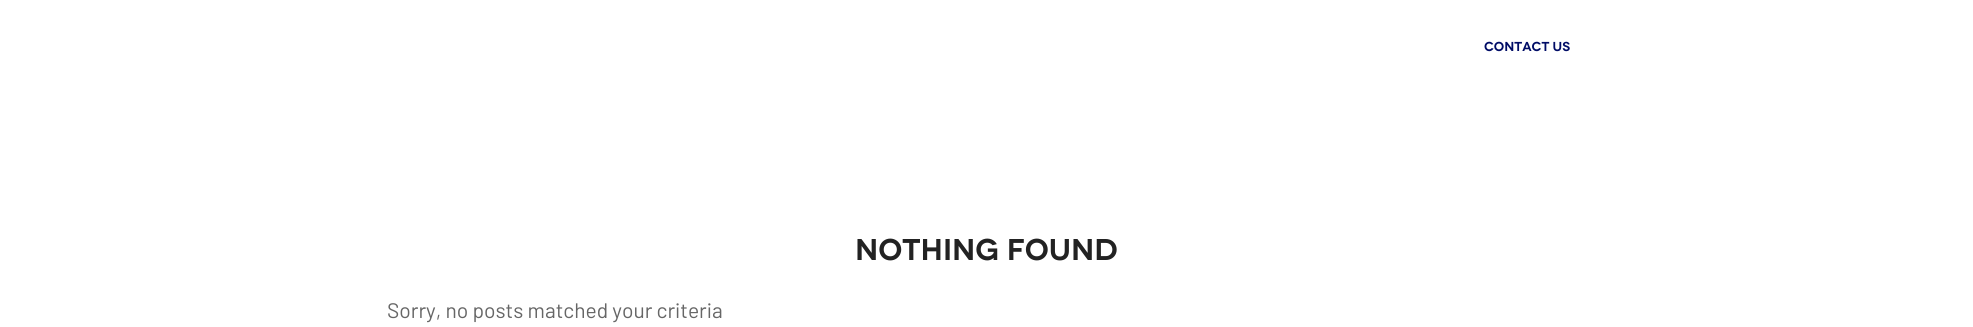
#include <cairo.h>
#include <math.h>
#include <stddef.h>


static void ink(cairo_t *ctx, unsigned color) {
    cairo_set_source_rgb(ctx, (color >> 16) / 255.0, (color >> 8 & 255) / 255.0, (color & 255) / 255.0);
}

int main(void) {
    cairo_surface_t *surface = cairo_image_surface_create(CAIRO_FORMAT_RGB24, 1973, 327);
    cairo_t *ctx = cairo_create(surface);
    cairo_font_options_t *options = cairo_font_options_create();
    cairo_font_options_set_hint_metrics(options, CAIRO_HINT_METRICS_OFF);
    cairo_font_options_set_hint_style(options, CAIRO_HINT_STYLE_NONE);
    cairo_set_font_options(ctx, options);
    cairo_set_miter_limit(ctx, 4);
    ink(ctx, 0xFFFFFF);
    cairo_paint(ctx);
    cairo_select_font_face(ctx, "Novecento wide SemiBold", CAIRO_FONT_SLANT_NORMAL, CAIRO_FONT_WEIGHT_NORMAL);
    cairo_set_font_size(ctx, 13);
    ink(ctx, 0x000C66);
    cairo_move_to(ctx, 1484, 51);
    cairo_show_text(ctx, "Contact Us");
    cairo_set_font_size(ctx, 30);
    ink(ctx, 0x222222);
    cairo_move_to(ctx, 855, 260);
    cairo_show_text(ctx, "Nothing Found");
    cairo_select_font_face(ctx, "Barlow", CAIRO_FONT_SLANT_NORMAL, CAIRO_FONT_WEIGHT_NORMAL);
    cairo_set_font_size(ctx, 21);
    ink(ctx, 0x666666);
    cairo_move_to(ctx, 387, 318);
    cairo_show_text(ctx, "Sorry, no posts matched your criteria");
    cairo_surface_write_to_png(surface, "image.png");
    cairo_font_options_destroy(options);
    cairo_destroy(ctx);
    cairo_surface_destroy(surface);
    return 0;
}
